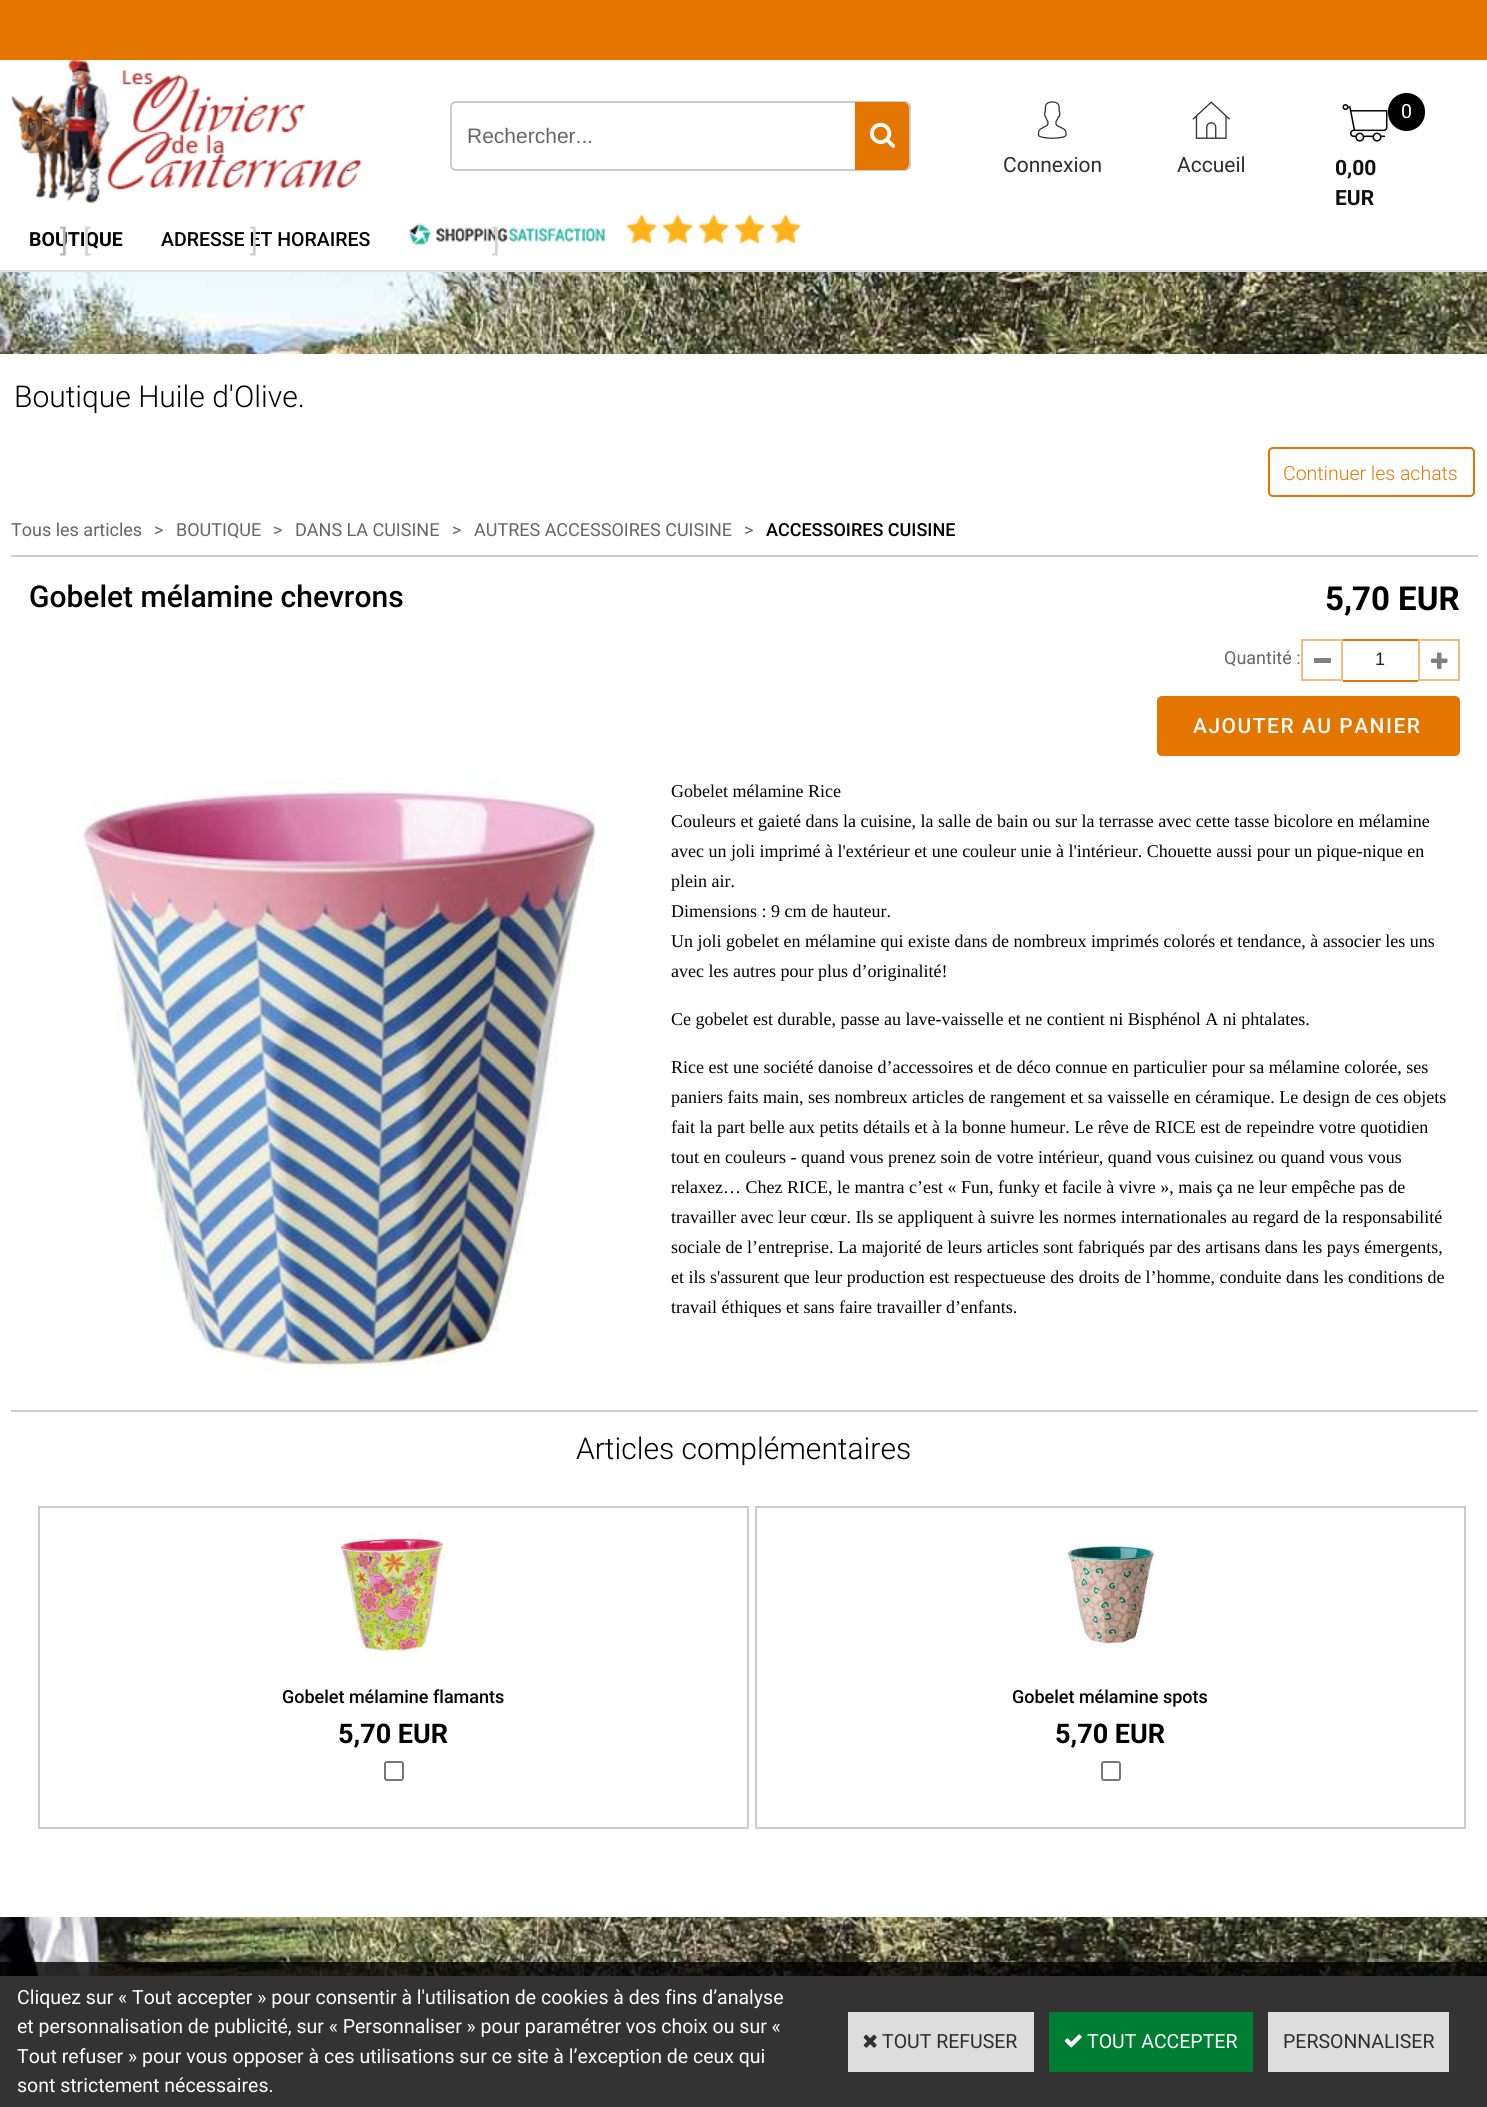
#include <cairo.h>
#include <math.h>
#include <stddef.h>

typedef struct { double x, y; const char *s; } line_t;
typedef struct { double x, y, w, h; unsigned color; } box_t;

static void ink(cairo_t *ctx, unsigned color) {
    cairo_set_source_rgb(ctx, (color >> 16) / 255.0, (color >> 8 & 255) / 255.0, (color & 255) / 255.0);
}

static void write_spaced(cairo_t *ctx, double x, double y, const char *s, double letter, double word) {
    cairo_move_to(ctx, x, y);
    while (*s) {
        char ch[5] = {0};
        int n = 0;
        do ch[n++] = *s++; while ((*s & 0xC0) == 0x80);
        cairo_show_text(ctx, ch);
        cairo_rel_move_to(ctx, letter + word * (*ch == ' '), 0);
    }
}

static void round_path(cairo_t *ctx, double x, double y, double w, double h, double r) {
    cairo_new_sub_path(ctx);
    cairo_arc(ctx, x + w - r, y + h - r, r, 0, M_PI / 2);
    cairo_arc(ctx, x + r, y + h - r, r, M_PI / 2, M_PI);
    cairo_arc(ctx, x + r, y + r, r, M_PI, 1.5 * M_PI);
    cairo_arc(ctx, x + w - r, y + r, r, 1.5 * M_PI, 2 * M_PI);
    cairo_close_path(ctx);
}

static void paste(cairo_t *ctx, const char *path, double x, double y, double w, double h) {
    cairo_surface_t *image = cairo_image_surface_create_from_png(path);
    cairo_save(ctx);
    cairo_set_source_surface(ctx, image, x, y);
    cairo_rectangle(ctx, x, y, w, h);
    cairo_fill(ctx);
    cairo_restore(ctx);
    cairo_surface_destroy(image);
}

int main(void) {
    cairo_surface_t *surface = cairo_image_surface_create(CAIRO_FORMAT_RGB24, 1487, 2107);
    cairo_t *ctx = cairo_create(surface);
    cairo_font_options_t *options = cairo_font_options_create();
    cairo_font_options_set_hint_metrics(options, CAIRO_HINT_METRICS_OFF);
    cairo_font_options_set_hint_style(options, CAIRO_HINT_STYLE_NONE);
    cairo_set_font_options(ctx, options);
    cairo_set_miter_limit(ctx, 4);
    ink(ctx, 0xFFFFFF);
    cairo_paint(ctx);
    paste(ctx, "media/1.png", 0, 272, 1487, 82);
    paste(ctx, "media/2.png", 0, 1917, 1487, 59);
    ink(ctx, 0xE47600);
    cairo_rectangle(ctx, 0, 0, 1487, 60);
    cairo_fill(ctx);
    ink(ctx, 0xE2E2E2);
    cairo_rectangle(ctx, 0, 270, 1487, 2);
    cairo_fill(ctx);
    paste(ctx, "media/3.png", 9, 60, 355, 143);
    round_path(ctx, 451, 102, 459, 68, 5);
    ink(ctx, 0xCCCCCC);
    cairo_stroke(ctx);
    cairo_select_font_face(ctx, "Liberation Sans", CAIRO_FONT_SLANT_NORMAL, CAIRO_FONT_WEIGHT_NORMAL);
    cairo_set_font_size(ctx, 21);
    ink(ctx, 0x666666);
    cairo_move_to(ctx, 467, 143);
    cairo_show_text(ctx, "Rechercher...");
    ink(ctx, 0xE47600);
    cairo_new_path(ctx);
    cairo_move_to(ctx, 855, 102);
    cairo_line_to(ctx, 903, 102);
    cairo_curve_to(ctx, 906.5, 102, 909, 104.5, 909, 108);
    cairo_line_to(ctx, 909, 164);
    cairo_curve_to(ctx, 909, 167.5, 906.5, 170, 903, 170);
    cairo_line_to(ctx, 855, 170);
    cairo_close_path(ctx);
    cairo_fill(ctx);
    paste(ctx, "media/4.png", 870, 122, 25, 26);
    paste(ctx, "media/5.png", 1037, 101, 30, 38);
    cairo_select_font_face(ctx, "Roboto", CAIRO_FONT_SLANT_NORMAL, CAIRO_FONT_WEIGHT_NORMAL);
    ink(ctx, 0x2E2E2E);
    cairo_move_to(ctx, 1003, 172);
    cairo_show_text(ctx, "Connexion");
    paste(ctx, "media/6.png", 1192, 101, 38, 38);
    cairo_move_to(ctx, 1177, 172);
    cairo_show_text(ctx, "Accueil");
    paste(ctx, "media/7.png", 1342, 104, 46, 38);
    ink(ctx, 0x000000);
    round_path(ctx, 1388, 93, 37, 38, 18.5);
    cairo_fill(ctx);
    cairo_set_font_size(ctx, 19.5);
    ink(ctx, 0xFFFFFF);
    cairo_move_to(ctx, 1401, 118);
    cairo_show_text(ctx, "0");
    cairo_select_font_face(ctx, "Roboto", CAIRO_FONT_SLANT_NORMAL, CAIRO_FONT_WEIGHT_BOLD);
    cairo_set_font_size(ctx, 21);
    ink(ctx, 0x0F0F0F);
    cairo_move_to(ctx, 1335, 175);
    cairo_show_text(ctx, "0,00");
    cairo_move_to(ctx, 1335, 205);
    cairo_show_text(ctx, "EUR");
    cairo_set_font_size(ctx, 19.5);
    ink(ctx, 0x000000);
    cairo_move_to(ctx, 29, 246);
    cairo_show_text(ctx, "BOUTIQUE");
    cairo_select_font_face(ctx, "Roboto", CAIRO_FONT_SLANT_NORMAL, CAIRO_FONT_WEIGHT_NORMAL);
    cairo_set_font_size(ctx, 30);
    ink(ctx, 0xB6B6B6);
    cairo_move_to(ctx, 60, 251);
    cairo_show_text(ctx, "]");
    ink(ctx, 0xD4D4D4);
    cairo_move_to(ctx, 83, 251);
    cairo_show_text(ctx, "[");
    cairo_select_font_face(ctx, "Roboto Medium", CAIRO_FONT_SLANT_NORMAL, CAIRO_FONT_WEIGHT_NORMAL);
    cairo_set_font_size(ctx, 19.5);
    ink(ctx, 0x000000);
    cairo_move_to(ctx, 161, 246);
    cairo_show_text(ctx, "ADRESSE ET HORAIRES");
    cairo_select_font_face(ctx, "Roboto", CAIRO_FONT_SLANT_NORMAL, CAIRO_FONT_WEIGHT_NORMAL);
    cairo_set_font_size(ctx, 30);
    ink(ctx, 0xCDCDCD);
    cairo_move_to(ctx, 250, 251);
    cairo_show_text(ctx, "]");
    paste(ctx, "media/8.png", 409, 223, 196, 22);
    ink(ctx, 0xD4D4D4);
    cairo_move_to(ctx, 492, 251);
    cairo_show_text(ctx, "]");
    paste(ctx, "media/9.png", 626, 214, 32, 30);
    paste(ctx, "media/9.png", 662, 214, 32, 30);
    paste(ctx, "media/9.png", 698, 214, 32, 30);
    paste(ctx, "media/10.png", 734, 214, 32, 30);
    paste(ctx, "media/9.png", 770, 214, 32, 30);
    cairo_select_font_face(ctx, "Roboto Light", CAIRO_FONT_SLANT_NORMAL, CAIRO_FONT_WEIGHT_NORMAL);
    ink(ctx, 0x000000);
    cairo_move_to(ctx, 14, 407);
    cairo_show_text(ctx, "Boutique Huile d'Olive.");
    round_path(ctx, 1269, 448, 205, 48, 4);
    ink(ctx, 0xE47600);
    cairo_stroke(ctx);
    cairo_set_font_size(ctx, 19.5);
    cairo_move_to(ctx, 1283, 480);
    cairo_show_text(ctx, "Continuer les achats");
    cairo_select_font_face(ctx, "Roboto", CAIRO_FONT_SLANT_NORMAL, CAIRO_FONT_WEIGHT_NORMAL);
    cairo_set_font_size(ctx, 18);
    ink(ctx, 0x666666);
    {
        static const line_t items[] = {
            {11, 536, "Tous les articles"},
            {154, 536, ">"},
            {176, 536, "BOUTIQUE"},
            {273, 536, ">"},
            {295, 536, "DANS LA CUISINE"},
            {452, 536, ">"},
            {474, 536, "AUTRES ACCESSOIRES CUISINE"},
            {744, 536, ">"},
        };
        for (size_t i = 0; i < sizeof items / sizeof *items; i++) {
            cairo_move_to(ctx, items[i].x, items[i].y);
            cairo_show_text(ctx, items[i].s);
        }
    }
    cairo_select_font_face(ctx, "Roboto Medium", CAIRO_FONT_SLANT_NORMAL, CAIRO_FONT_WEIGHT_NORMAL);
    ink(ctx, 0x000000);
    cairo_move_to(ctx, 766, 536);
    cairo_show_text(ctx, "ACCESSOIRES CUISINE");
    ink(ctx, 0xCCCCCC);
    cairo_rectangle(ctx, 11, 555, 1467, 2);
    cairo_fill(ctx);
    cairo_set_font_size(ctx, 30);
    ink(ctx, 0x000000);
    cairo_move_to(ctx, 29, 607);
    cairo_show_text(ctx, "Gobelet mélamine chevrons");
    cairo_select_font_face(ctx, "Roboto", CAIRO_FONT_SLANT_NORMAL, CAIRO_FONT_WEIGHT_BOLD);
    cairo_set_font_size(ctx, 33);
    cairo_move_to(ctx, 1325, 610);
    cairo_show_text(ctx, "5,70 EUR");
    cairo_select_font_face(ctx, "Roboto", CAIRO_FONT_SLANT_NORMAL, CAIRO_FONT_WEIGHT_NORMAL);
    cairo_set_font_size(ctx, 18);
    ink(ctx, 0x666666);
    cairo_move_to(ctx, 1224, 664);
    cairo_show_text(ctx, "Quantité :");
    cairo_rectangle(ctx, 1302, 640, 40, 40);
    ink(ctx, 0xF2BB80);
    cairo_stroke(ctx);
    {
        static const box_t items[] = {
            {1314, 658, 17, 5, 0x808080},
            {1343, 639, 75, 2, 0xE47600},
            {1343, 680, 75, 2, 0xE47600},
        };
        for (size_t i = 0; i < sizeof items / sizeof *items; i++) {
            ink(ctx, items[i].color);
            cairo_rectangle(ctx, items[i].x, items[i].y, items[i].w, items[i].h);
            cairo_fill(ctx);
        }
    }
    cairo_select_font_face(ctx, "Liberation Sans", CAIRO_FONT_SLANT_NORMAL, CAIRO_FONT_WEIGHT_NORMAL);
    ink(ctx, 0x212121);
    cairo_move_to(ctx, 1375, 665);
    cairo_show_text(ctx, "1");
    cairo_rectangle(ctx, 1419, 640, 40, 40);
    ink(ctx, 0xF2BB80);
    cairo_stroke(ctx);
    paste(ctx, "media/11.png", 1431, 652, 17, 17);
    ink(ctx, 0xE47600);
    round_path(ctx, 1157, 696, 303, 60, 5);
    cairo_fill(ctx);
    cairo_select_font_face(ctx, "Roboto Medium", CAIRO_FONT_SLANT_NORMAL, CAIRO_FONT_WEIGHT_NORMAL);
    cairo_set_font_size(ctx, 21);
    ink(ctx, 0xFFFFFF);
    write_spaced(ctx, 1193, 733, "AJOUTER AU PANIER", 1.5, 0);
    paste(ctx, "media/12.png", 76, 777, 520, 597);
    cairo_select_font_face(ctx, "Liberation Serif", CAIRO_FONT_SLANT_NORMAL, CAIRO_FONT_WEIGHT_NORMAL);
    cairo_set_font_size(ctx, 18);
    ink(ctx, 0x000000);
    {
        static const line_t items[] = {
            {671, 797, "Gobelet mélamine Rice"},
            {671, 827, "Couleurs et gaieté dans la cuisine, la salle de bain ou sur la terrasse avec cette tasse bicolore en mélamine"},
            {671, 857, "avec un joli imprimé à l'extérieur et une couleur unie à l'intérieur. Chouette aussi pour un pique-nique en"},
            {671, 887, "plein air."},
            {671, 917, "Dimensions : 9 cm de hauteur."},
            {671, 947, "Un joli gobelet en mélamine qui existe dans de nombreux imprimés colorés et tendance, à associer les uns"},
            {671, 977, "avec les autres pour plus d’originalité!"},
            {671, 1025, "Ce gobelet est durable, passe au lave-vaisselle et ne contient ni Bisphénol A ni phtalates."},
            {671, 1073, "Rice est une société danoise d’accessoires et de déco connue en particulier pour sa mélamine colorée, ses"},
            {671, 1103, "paniers faits main, ses nombreux articles de rangement et sa vaisselle en céramique. Le design de ces objets"},
            {671, 1133, "fait la part belle aux petits détails et à la bonne humeur. Le rêve de RICE est de repeindre votre quotidien"},
            {671, 1163, "tout en couleurs - quand vous prenez soin de votre intérieur, quand vous cuisinez ou quand vous vous"},
            {671, 1193, "relaxez… Chez RICE, le mantra c’est « Fun, funky et facile à vivre », mais ça ne leur empêche pas de"},
            {671, 1223, "travailler avec leur cœur. Ils se appliquent à suivre les normes internationales au regard de la responsabilité"},
            {671, 1253, "sociale de l’entreprise. La majorité de leurs articles sont fabriqués par des artisans dans les pays émergents,"},
            {671, 1283, "et ils s'assurent que leur production est respectueuse des droits de l’homme, conduite dans les conditions de"},
            {671, 1313, "travail éthiques et sans faire travailler d’enfants."},
        };
        for (size_t i = 0; i < sizeof items / sizeof *items; i++) {
            cairo_move_to(ctx, items[i].x, items[i].y);
            cairo_show_text(ctx, items[i].s);
        }
    }
    ink(ctx, 0xCCCCCC);
    cairo_rectangle(ctx, 11, 1410, 1467, 2);
    cairo_fill(ctx);
    cairo_select_font_face(ctx, "Roboto Light", CAIRO_FONT_SLANT_NORMAL, CAIRO_FONT_WEIGHT_NORMAL);
    cairo_set_font_size(ctx, 30);
    ink(ctx, 0x000000);
    cairo_move_to(ctx, 576, 1459);
    cairo_show_text(ctx, "Articles complémentaires");
    cairo_rectangle(ctx, 39, 1507, 709, 321);
    ink(ctx, 0xCCCCCC);
    cairo_stroke(ctx);
    paste(ctx, "media/13.png", 333, 1534, 111, 121);
    cairo_select_font_face(ctx, "Roboto Medium", CAIRO_FONT_SLANT_NORMAL, CAIRO_FONT_WEIGHT_NORMAL);
    cairo_set_font_size(ctx, 18);
    ink(ctx, 0x000000);
    cairo_move_to(ctx, 282, 1703);
    cairo_show_text(ctx, "Gobelet mélamine flamants");
    cairo_select_font_face(ctx, "Roboto", CAIRO_FONT_SLANT_NORMAL, CAIRO_FONT_WEIGHT_BOLD);
    cairo_set_font_size(ctx, 27);
    cairo_move_to(ctx, 338, 1743);
    cairo_show_text(ctx, "5,70 EUR");
    round_path(ctx, 385, 1762, 18, 18, 2);
    ink(ctx, 0x767676);
    cairo_stroke(ctx);
    cairo_rectangle(ctx, 756, 1507, 709, 321);
    ink(ctx, 0xCCCCCC);
    cairo_stroke(ctx);
    paste(ctx, "media/14.png", 1067, 1545, 89, 101);
    cairo_select_font_face(ctx, "Roboto Medium", CAIRO_FONT_SLANT_NORMAL, CAIRO_FONT_WEIGHT_NORMAL);
    cairo_set_font_size(ctx, 18);
    ink(ctx, 0x000000);
    cairo_move_to(ctx, 1012, 1703);
    cairo_show_text(ctx, "Gobelet mélamine spots");
    cairo_select_font_face(ctx, "Roboto", CAIRO_FONT_SLANT_NORMAL, CAIRO_FONT_WEIGHT_BOLD);
    cairo_set_font_size(ctx, 27);
    cairo_move_to(ctx, 1055, 1743);
    cairo_show_text(ctx, "5,70 EUR");
    round_path(ctx, 1102, 1762, 18, 18, 2);
    ink(ctx, 0x767676);
    cairo_stroke(ctx);
    cairo_set_source_rgba(ctx, 0, 0, 0, 0.8);
    cairo_rectangle(ctx, 0, 1962, 1487, 14);
    cairo_fill(ctx);
    ink(ctx, 0x333333);
    cairo_rectangle(ctx, 0, 1976, 1487, 131);
    cairo_fill(ctx);
    cairo_select_font_face(ctx, "Roboto", CAIRO_FONT_SLANT_NORMAL, CAIRO_FONT_WEIGHT_NORMAL);
    cairo_set_font_size(ctx, 19.5);
    ink(ctx, 0xFFFFFF);
    {
        static const line_t items[] = {
            {17, 2004, "Cliquez sur « Tout accepter » pour consentir à l'utilisation de cookies à des fins d’analyse"},
            {17, 2033, "et personnalisation de publicité, sur « Personnaliser » pour paramétrer vos choix ou sur «"},
            {17, 2063, "Tout refuser » pour vous opposer à ces utilisations sur ce site à l’exception de ceux qui"},
            {17, 2092, "sont strictement nécessaires."},
        };
        for (size_t i = 0; i < sizeof items / sizeof *items; i++) {
            cairo_move_to(ctx, items[i].x, items[i].y);
            cairo_show_text(ctx, items[i].s);
        }
    }
    ink(ctx, 0xDDDDDD);
    cairo_rectangle(ctx, 848, 2012, 186, 60);
    cairo_fill(ctx);
    paste(ctx, "media/15.png", 863, 2034, 14, 14);
    ink(ctx, 0x2E2E2E);
    cairo_move_to(ctx, 882, 2048);
    cairo_show_text(ctx, "TOUT REFUSER");
    ink(ctx, 0x007E33);
    cairo_rectangle(ctx, 1049, 2012, 204, 60);
    cairo_fill(ctx);
    paste(ctx, "media/16.png", 1064, 2034, 18, 14);
    ink(ctx, 0xFFFFFF);
    cairo_move_to(ctx, 1087, 2048);
    cairo_show_text(ctx, "TOUT ACCEPTER");
    ink(ctx, 0xDDDDDD);
    cairo_rectangle(ctx, 1268, 2012, 181, 60);
    cairo_fill(ctx);
    ink(ctx, 0x2E2E2E);
    cairo_move_to(ctx, 1283, 2048);
    cairo_show_text(ctx, "PERSONNALISER");
    cairo_surface_write_to_png(surface, "image.png");
    cairo_font_options_destroy(options);
    cairo_destroy(ctx);
    cairo_surface_destroy(surface);
    return 0;
}
